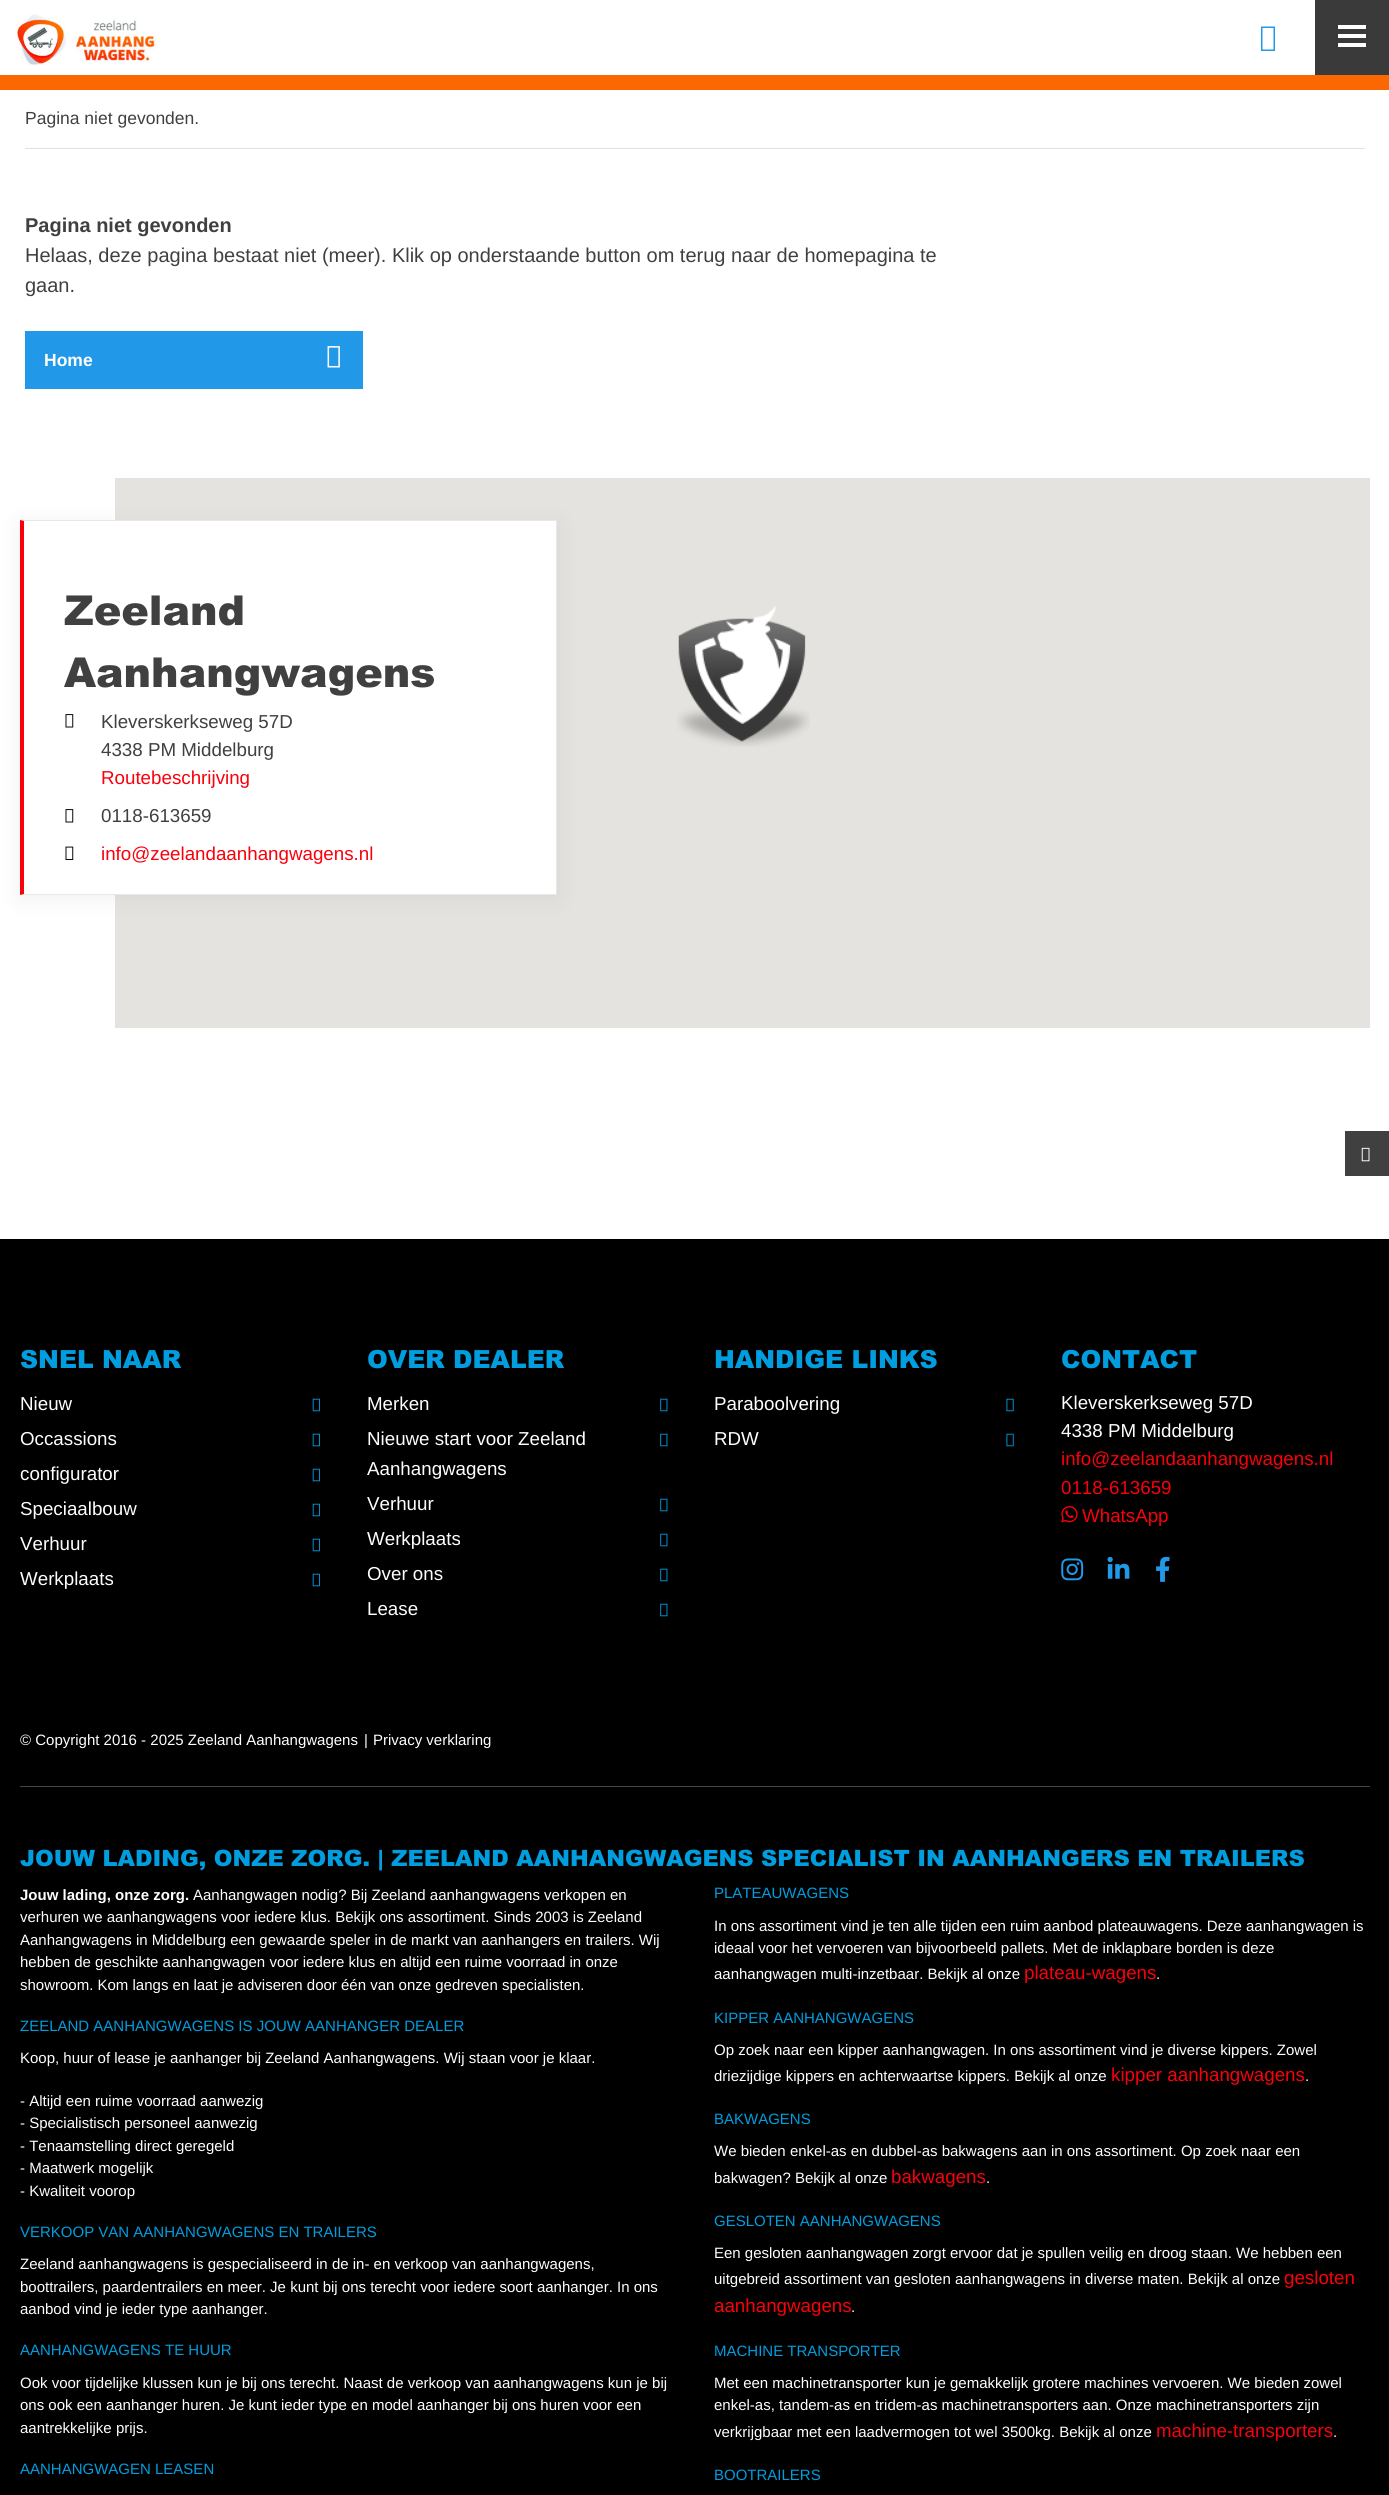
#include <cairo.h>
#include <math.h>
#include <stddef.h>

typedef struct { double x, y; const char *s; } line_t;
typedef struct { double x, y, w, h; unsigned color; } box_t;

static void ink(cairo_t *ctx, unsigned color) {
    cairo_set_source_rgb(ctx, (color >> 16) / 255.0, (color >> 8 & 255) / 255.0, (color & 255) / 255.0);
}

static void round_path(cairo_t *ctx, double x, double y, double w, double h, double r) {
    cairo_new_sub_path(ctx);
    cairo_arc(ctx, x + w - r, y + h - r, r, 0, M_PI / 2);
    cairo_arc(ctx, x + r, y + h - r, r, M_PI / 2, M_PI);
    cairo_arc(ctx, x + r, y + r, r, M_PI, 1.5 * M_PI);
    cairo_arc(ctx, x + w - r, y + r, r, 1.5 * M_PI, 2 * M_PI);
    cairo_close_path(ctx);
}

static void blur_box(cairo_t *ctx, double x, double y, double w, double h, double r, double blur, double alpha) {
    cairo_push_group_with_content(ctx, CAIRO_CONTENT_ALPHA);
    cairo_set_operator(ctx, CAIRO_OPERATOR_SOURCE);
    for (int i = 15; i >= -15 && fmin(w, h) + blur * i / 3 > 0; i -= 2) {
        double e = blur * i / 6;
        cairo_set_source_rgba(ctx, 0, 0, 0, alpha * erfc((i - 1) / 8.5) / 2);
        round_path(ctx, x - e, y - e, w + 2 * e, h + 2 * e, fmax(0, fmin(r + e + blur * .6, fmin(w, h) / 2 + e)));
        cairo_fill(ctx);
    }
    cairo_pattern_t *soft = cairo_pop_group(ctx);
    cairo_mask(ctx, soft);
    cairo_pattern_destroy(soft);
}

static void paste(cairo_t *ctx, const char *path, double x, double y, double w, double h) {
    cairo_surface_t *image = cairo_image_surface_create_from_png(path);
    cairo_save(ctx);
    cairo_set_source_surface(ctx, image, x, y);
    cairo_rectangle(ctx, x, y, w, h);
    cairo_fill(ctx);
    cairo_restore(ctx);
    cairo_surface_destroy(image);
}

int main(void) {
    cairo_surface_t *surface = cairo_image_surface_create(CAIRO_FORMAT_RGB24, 1389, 2495);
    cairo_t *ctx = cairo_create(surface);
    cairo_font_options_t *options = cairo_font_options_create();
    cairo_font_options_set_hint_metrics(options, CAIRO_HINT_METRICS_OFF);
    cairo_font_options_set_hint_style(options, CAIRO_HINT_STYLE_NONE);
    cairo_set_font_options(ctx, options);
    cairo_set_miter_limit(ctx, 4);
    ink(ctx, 0xFFFFFF);
    cairo_paint(ctx);
    ink(ctx, 0xFB6801);
    cairo_rectangle(ctx, 0, 75, 1389, 15);
    cairo_fill(ctx);
    paste(ctx, "media/1.png", 17, 14, 140, 51);
    ink(ctx, 0x2199E8);
    cairo_new_path(ctx);
    cairo_move_to(ctx, 1261, 51);
    cairo_line_to(ctx, 1261, 26.5);
    cairo_line_to(ctx, 1275, 26.5);
    cairo_line_to(ctx, 1275, 51);
    cairo_close_path(ctx);
    cairo_move_to(ctx, 1262.5, 49.5);
    cairo_line_to(ctx, 1273.5, 49.5);
    cairo_line_to(ctx, 1273.5, 28);
    cairo_line_to(ctx, 1262.5, 28);
    cairo_close_path(ctx);
    cairo_fill(ctx);
    {
        static const box_t items[] = {
            {1315, 0, 74, 75, 0x3A3A3A},
            {1338, 25, 28, 4, 0xFFFFFF},
            {1338, 34, 28, 4, 0xFFFFFF},
            {1338, 43, 28, 4, 0xFFFFFF},
            {25, 148, 1340, 1, 0xE1E1E1},
        };
        for (size_t i = 0; i < sizeof items / sizeof *items; i++) {
            ink(ctx, items[i].color);
            cairo_rectangle(ctx, items[i].x, items[i].y, items[i].w, items[i].h);
            cairo_fill(ctx);
        }
    }
    cairo_select_font_face(ctx, "Liberation Sans", CAIRO_FONT_SLANT_NORMAL, CAIRO_FONT_WEIGHT_NORMAL);
    cairo_set_font_size(ctx, 17.5);
    ink(ctx, 0x404040);
    cairo_move_to(ctx, 25, 124);
    cairo_show_text(ctx, "Pagina niet gevonden.");
    cairo_select_font_face(ctx, "Liberation Sans", CAIRO_FONT_SLANT_NORMAL, CAIRO_FONT_WEIGHT_BOLD);
    cairo_set_font_size(ctx, 20);
    cairo_move_to(ctx, 25, 232);
    cairo_show_text(ctx, "Pagina niet gevonden");
    cairo_select_font_face(ctx, "Liberation Sans", CAIRO_FONT_SLANT_NORMAL, CAIRO_FONT_WEIGHT_NORMAL);
    cairo_move_to(ctx, 25, 262);
    cairo_show_text(ctx, "Helaas, deze pagina bestaat niet (meer). Klik op onderstaande button om terug naar de homepagina te");
    cairo_move_to(ctx, 25, 292);
    cairo_show_text(ctx, "gaan.");
    ink(ctx, 0x2199E8);
    cairo_rectangle(ctx, 25, 331, 338, 58);
    cairo_fill(ctx);
    cairo_select_font_face(ctx, "Liberation Sans", CAIRO_FONT_SLANT_NORMAL, CAIRO_FONT_WEIGHT_BOLD);
    cairo_set_font_size(ctx, 17.5);
    ink(ctx, 0xFEFEFE);
    cairo_move_to(ctx, 44, 366);
    cairo_show_text(ctx, "Home");
    paste(ctx, "media/2.png", 327, 346, 13, 22);
    ink(ctx, 0xE5E3DF);
    cairo_rectangle(ctx, 115, 478, 1255, 550);
    cairo_fill(ctx);
    paste(ctx, "media/3.png", 677, 606, 133, 141);
    ink(ctx, 0x000000);
    blur_box(ctx, 20, 524, 538, 375, 0, 12.5, 0.06);
    ink(ctx, 0xFFFFFF);
    cairo_rectangle(ctx, 24, 521, 532, 373);
    cairo_fill(ctx);
    ink(ctx, 0xE8E8E8);
    cairo_new_path(ctx);
    cairo_move_to(ctx, 20, 520);
    cairo_line_to(ctx, 558, 520);
    cairo_line_to(ctx, 556, 521);
    cairo_line_to(ctx, 24, 521);
    cairo_close_path(ctx);
    cairo_fill(ctx);
    cairo_rectangle(ctx, 556, 520, 1, 375);
    cairo_fill(ctx);
    cairo_new_path(ctx);
    cairo_move_to(ctx, 558, 895);
    cairo_line_to(ctx, 20, 895);
    cairo_line_to(ctx, 24, 894);
    cairo_line_to(ctx, 556, 894);
    cairo_close_path(ctx);
    cairo_fill(ctx);
    ink(ctx, 0xF9000B);
    cairo_new_path(ctx);
    cairo_move_to(ctx, 20, 895);
    cairo_line_to(ctx, 20, 520);
    cairo_line_to(ctx, 24, 521);
    cairo_line_to(ctx, 24, 894);
    cairo_close_path(ctx);
    cairo_fill(ctx);
    cairo_select_font_face(ctx, "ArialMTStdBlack", CAIRO_FONT_SLANT_NORMAL, CAIRO_FONT_WEIGHT_NORMAL);
    cairo_set_font_size(ctx, 41.25);
    ink(ctx, 0x404040);
    cairo_move_to(ctx, 64, 625);
    cairo_show_text(ctx, "Zeeland");
    cairo_move_to(ctx, 64, 687);
    cairo_show_text(ctx, "Aanhangwagens");
    paste(ctx, "media/4.png", 65, 714, 9, 14);
    cairo_select_font_face(ctx, "Liberation Sans", CAIRO_FONT_SLANT_NORMAL, CAIRO_FONT_WEIGHT_NORMAL);
    cairo_set_font_size(ctx, 18.75);
    cairo_move_to(ctx, 101, 728);
    cairo_show_text(ctx, "Kleverskerkseweg 57D");
    cairo_move_to(ctx, 101, 756);
    cairo_show_text(ctx, "4338 PM Middelburg");
    ink(ctx, 0xF9000B);
    cairo_move_to(ctx, 101, 784);
    cairo_show_text(ctx, "Routebeschrijving");
    paste(ctx, "media/4.png", 65, 809, 9, 14);
    ink(ctx, 0x404040);
    cairo_move_to(ctx, 101, 822);
    cairo_show_text(ctx, "0118-613659");
    paste(ctx, "media/5.png", 65, 846, 9, 14);
    ink(ctx, 0xF9000B);
    cairo_move_to(ctx, 101, 860);
    cairo_show_text(ctx, "info@zeelandaanhangwagens.nl");
    ink(ctx, 0x000000);
    cairo_rectangle(ctx, 0, 1239, 1389, 1256);
    cairo_fill(ctx);
    ink(ctx, 0x404040);
    cairo_rectangle(ctx, 1345, 1131, 44, 45);
    cairo_fill(ctx);
    paste(ctx, "media/6.png", 1361, 1147, 9, 15);
    cairo_select_font_face(ctx, "ArialMTStdBlack", CAIRO_FONT_SLANT_NORMAL, CAIRO_FONT_WEIGHT_NORMAL);
    cairo_set_font_size(ctx, 25);
    ink(ctx, 0x009DDF);
    cairo_move_to(ctx, 20, 1368);
    cairo_show_text(ctx, "SNEL NAAR");
    cairo_select_font_face(ctx, "Liberation Sans", CAIRO_FONT_SLANT_NORMAL, CAIRO_FONT_WEIGHT_NORMAL);
    cairo_set_font_size(ctx, 18.75);
    ink(ctx, 0xFEFEFE);
    cairo_move_to(ctx, 20, 1410);
    cairo_show_text(ctx, "Nieuw");
    paste(ctx, "media/7.png", 312, 1398, 8, 14);
    cairo_move_to(ctx, 20, 1445);
    cairo_show_text(ctx, "Occassions");
    paste(ctx, "media/7.png", 312, 1433, 8, 14);
    cairo_move_to(ctx, 20, 1480);
    cairo_show_text(ctx, "configurator");
    paste(ctx, "media/7.png", 312, 1468, 8, 14);
    cairo_move_to(ctx, 20, 1515);
    cairo_show_text(ctx, "Speciaalbouw");
    paste(ctx, "media/7.png", 312, 1503, 8, 14);
    cairo_move_to(ctx, 20, 1550);
    cairo_show_text(ctx, "Verhuur");
    paste(ctx, "media/7.png", 312, 1538, 8, 14);
    cairo_move_to(ctx, 20, 1585);
    cairo_show_text(ctx, "Werkplaats");
    paste(ctx, "media/7.png", 312, 1573, 8, 14);
    cairo_select_font_face(ctx, "ArialMTStdBlack", CAIRO_FONT_SLANT_NORMAL, CAIRO_FONT_WEIGHT_NORMAL);
    cairo_set_font_size(ctx, 25);
    ink(ctx, 0x009DDF);
    cairo_move_to(ctx, 367, 1368);
    cairo_show_text(ctx, "OVER DEALER");
    cairo_select_font_face(ctx, "Liberation Sans", CAIRO_FONT_SLANT_NORMAL, CAIRO_FONT_WEIGHT_NORMAL);
    cairo_set_font_size(ctx, 18.75);
    ink(ctx, 0xFEFEFE);
    cairo_move_to(ctx, 367, 1410);
    cairo_show_text(ctx, "Merken");
    paste(ctx, "media/8.png", 660, 1398, 8, 14);
    cairo_move_to(ctx, 367, 1445);
    cairo_show_text(ctx, "Nieuwe start voor Zeeland");
    paste(ctx, "media/8.png", 660, 1433, 8, 14);
    cairo_move_to(ctx, 367, 1475);
    cairo_show_text(ctx, "Aanhangwagens");
    cairo_move_to(ctx, 367, 1510);
    cairo_show_text(ctx, "Verhuur");
    paste(ctx, "media/8.png", 660, 1498, 8, 14);
    cairo_move_to(ctx, 367, 1545);
    cairo_show_text(ctx, "Werkplaats");
    paste(ctx, "media/8.png", 660, 1533, 8, 14);
    cairo_move_to(ctx, 367, 1580);
    cairo_show_text(ctx, "Over ons");
    paste(ctx, "media/8.png", 660, 1568, 8, 14);
    cairo_move_to(ctx, 367, 1615);
    cairo_show_text(ctx, "Lease");
    paste(ctx, "media/8.png", 660, 1603, 8, 14);
    cairo_select_font_face(ctx, "ArialMTStdBlack", CAIRO_FONT_SLANT_NORMAL, CAIRO_FONT_WEIGHT_NORMAL);
    cairo_set_font_size(ctx, 25);
    ink(ctx, 0x009DDF);
    cairo_move_to(ctx, 714, 1368);
    cairo_show_text(ctx, "HANDIGE LINKS");
    cairo_select_font_face(ctx, "Liberation Sans", CAIRO_FONT_SLANT_NORMAL, CAIRO_FONT_WEIGHT_NORMAL);
    cairo_set_font_size(ctx, 18.75);
    ink(ctx, 0xFEFEFE);
    cairo_move_to(ctx, 714, 1410);
    cairo_show_text(ctx, "Paraboolvering");
    paste(ctx, "media/9.png", 1006, 1398, 8, 14);
    cairo_move_to(ctx, 714, 1445);
    cairo_show_text(ctx, "RDW");
    paste(ctx, "media/9.png", 1006, 1433, 8, 14);
    cairo_select_font_face(ctx, "ArialMTStdBlack", CAIRO_FONT_SLANT_NORMAL, CAIRO_FONT_WEIGHT_NORMAL);
    cairo_set_font_size(ctx, 25);
    ink(ctx, 0x009DDF);
    cairo_move_to(ctx, 1061, 1368);
    cairo_show_text(ctx, "CONTACT");
    cairo_select_font_face(ctx, "Liberation Sans", CAIRO_FONT_SLANT_NORMAL, CAIRO_FONT_WEIGHT_NORMAL);
    cairo_set_font_size(ctx, 18.75);
    ink(ctx, 0xFEFEFE);
    cairo_move_to(ctx, 1061, 1409);
    cairo_show_text(ctx, "Kleverskerkseweg 57D");
    cairo_move_to(ctx, 1061, 1437);
    cairo_show_text(ctx, "4338 PM Middelburg");
    ink(ctx, 0xF9000B);
    cairo_move_to(ctx, 1061, 1465);
    cairo_show_text(ctx, "info@zeelandaanhangwagens.nl");
    cairo_move_to(ctx, 1061, 1494);
    cairo_show_text(ctx, "0118-613659");
    paste(ctx, "media/10.png", 1061, 1506, 17, 17);
    cairo_move_to(ctx, 1082, 1522);
    cairo_show_text(ctx, "WhatsApp");
    paste(ctx, "media/11.png", 1061, 1558, 23, 23);
    paste(ctx, "media/12.png", 1107, 1556, 23, 23);
    paste(ctx, "media/13.png", 1156, 1556, 14, 26);
    ink(ctx, 0x454545);
    cairo_rectangle(ctx, 20, 1786, 1350, 1);
    cairo_fill(ctx);
    cairo_set_font_size(ctx, 15);
    ink(ctx, 0xFEFEFE);
    {
        static const line_t items[] = {
            {20, 1745, "© Copyright 2016 - 2025 Zeeland Aanhangwagens"},
            {364, 1745, "|"},
            {373, 1745, "Privacy verklaring"},
        };
        for (size_t i = 0; i < sizeof items / sizeof *items; i++) {
            cairo_move_to(ctx, items[i].x, items[i].y);
            cairo_show_text(ctx, items[i].s);
        }
    }
    cairo_select_font_face(ctx, "ArialMTStdBlack", CAIRO_FONT_SLANT_NORMAL, CAIRO_FONT_WEIGHT_NORMAL);
    cairo_set_font_size(ctx, 22.5);
    ink(ctx, 0x009DDF);
    cairo_move_to(ctx, 20, 1866);
    cairo_show_text(ctx, "JOUW LADING, ONZE ZORG. | ZEELAND AANHANGWAGENS SPECIALIST IN AANHANGERS EN TRAILERS");
    cairo_select_font_face(ctx, "Liberation Sans", CAIRO_FONT_SLANT_NORMAL, CAIRO_FONT_WEIGHT_BOLD);
    cairo_set_font_size(ctx, 15);
    ink(ctx, 0xFEFEFE);
    cairo_move_to(ctx, 20, 1900);
    cairo_show_text(ctx, "Jouw lading, onze zorg.");
    cairo_select_font_face(ctx, "Liberation Sans", CAIRO_FONT_SLANT_NORMAL, CAIRO_FONT_WEIGHT_NORMAL);
    {
        static const line_t items[] = {
            {193, 1900, "Aanhangwagen nodig? Bij Zeeland aanhangwagens verkopen en"},
            {20, 1922, "verhuren we aanhangwagens voor iedere klus. Bekijk ons assortiment. Sinds 2003 is Zeeland"},
            {20, 1945, "Aanhangwagens in Middelburg een gewaarde speler in de markt van aanhangers en trailers. Wij"},
            {20, 1967, "hebben de geschikte aanhangwagen voor iedere klus en altijd een ruime voorraad in onze"},
            {20, 1990, "showroom. Kom langs en laat je adviseren door één van onze gedreven specialisten."},
        };
        for (size_t i = 0; i < sizeof items / sizeof *items; i++) {
            cairo_move_to(ctx, items[i].x, items[i].y);
            cairo_show_text(ctx, items[i].s);
        }
    }
    ink(ctx, 0x009DDF);
    cairo_move_to(ctx, 20, 2031);
    cairo_show_text(ctx, "ZEELAND AANHANGWAGENS IS JOUW AANHANGER DEALER");
    ink(ctx, 0xFEFEFE);
    {
        static const line_t items[] = {
            {20, 2063, "Koop, huur of lease je aanhanger bij Zeeland Aanhangwagens. Wij staan voor je klaar."},
            {20, 2106, "- Altijd een ruime voorraad aanwezig"},
            {20, 2128, "- Specialistisch personeel aanwezig"},
            {20, 2151, "- Tenaamstelling direct geregeld"},
            {20, 2173, "- Maatwerk mogelijk"},
            {20, 2196, "- Kwaliteit voorop"},
        };
        for (size_t i = 0; i < sizeof items / sizeof *items; i++) {
            cairo_move_to(ctx, items[i].x, items[i].y);
            cairo_show_text(ctx, items[i].s);
        }
    }
    ink(ctx, 0x009DDF);
    cairo_move_to(ctx, 20, 2237);
    cairo_show_text(ctx, "VERKOOP VAN AANHANGWAGENS EN TRAILERS");
    ink(ctx, 0xFEFEFE);
    {
        static const line_t items[] = {
            {20, 2269, "Zeeland aanhangwagens is gespecialiseerd in de in- en verkoop van aanhangwagens,"},
            {20, 2292, "boottrailers, paardentrailers en meer. Je kunt bij ons terecht voor iedere soort aanhanger. In ons"},
            {20, 2314, "aanbod vind je ieder type aanhanger."},
        };
        for (size_t i = 0; i < sizeof items / sizeof *items; i++) {
            cairo_move_to(ctx, items[i].x, items[i].y);
            cairo_show_text(ctx, items[i].s);
        }
    }
    ink(ctx, 0x009DDF);
    cairo_move_to(ctx, 20, 2355);
    cairo_show_text(ctx, "AANHANGWAGENS TE HUUR");
    ink(ctx, 0xFEFEFE);
    {
        static const line_t items[] = {
            {20, 2388, "Ook voor tijdelijke klussen kun je bij ons terecht. Naast de verkoop van aanhangwagens kun je bij"},
            {20, 2410, "ons ook een aanhanger huren. Je kunt ieder type en model aanhanger bij ons huren voor een"},
            {20, 2433, "aantrekkelijke prijs."},
        };
        for (size_t i = 0; i < sizeof items / sizeof *items; i++) {
            cairo_move_to(ctx, items[i].x, items[i].y);
            cairo_show_text(ctx, items[i].s);
        }
    }
    ink(ctx, 0x009DDF);
    cairo_move_to(ctx, 20, 2474);
    cairo_show_text(ctx, "AANHANGWAGEN LEASEN");
    cairo_move_to(ctx, 714, 1898);
    cairo_show_text(ctx, "PLATEAUWAGENS");
    ink(ctx, 0xFEFEFE);
    {
        static const line_t items[] = {
            {714, 1931, "In ons assortiment vind je ten alle tijden een ruim aanbod plateauwagens. Deze aanhangwagen is"},
            {714, 1953, "ideaal voor het vervoeren van bijvoorbeeld pallets. Met de inklapbare borden is deze"},
            {714, 1979, "aanhangwagen multi-inzetbaar. Bekijk al onze"},
        };
        for (size_t i = 0; i < sizeof items / sizeof *items; i++) {
            cairo_move_to(ctx, items[i].x, items[i].y);
            cairo_show_text(ctx, items[i].s);
        }
    }
    cairo_set_font_size(ctx, 18.75);
    ink(ctx, 0xF9000B);
    cairo_move_to(ctx, 1024, 1979);
    cairo_show_text(ctx, "plateau-wagens");
    cairo_set_font_size(ctx, 15);
    ink(ctx, 0xFEFEFE);
    cairo_move_to(ctx, 1156, 1979);
    cairo_show_text(ctx, ".");
    ink(ctx, 0x009DDF);
    cairo_move_to(ctx, 714, 2023);
    cairo_show_text(ctx, "KIPPER AANHANGWAGENS");
    ink(ctx, 0xFEFEFE);
    cairo_move_to(ctx, 714, 2055);
    cairo_show_text(ctx, "Op zoek naar een kipper aanhangwagen. In ons assortiment vind je diverse kippers. Zowel");
    cairo_move_to(ctx, 714, 2081);
    cairo_show_text(ctx, "driezijdige kippers en achterwaartse kippers. Bekijk al onze");
    cairo_set_font_size(ctx, 18.75);
    ink(ctx, 0xF9000B);
    cairo_move_to(ctx, 1111, 2081);
    cairo_show_text(ctx, "kipper aanhangwagens");
    cairo_set_font_size(ctx, 15);
    ink(ctx, 0xFEFEFE);
    cairo_move_to(ctx, 1305, 2081);
    cairo_show_text(ctx, ".");
    ink(ctx, 0x009DDF);
    cairo_move_to(ctx, 714, 2124);
    cairo_show_text(ctx, "BAKWAGENS");
    ink(ctx, 0xFEFEFE);
    cairo_move_to(ctx, 714, 2156);
    cairo_show_text(ctx, "We bieden enkel-as en dubbel-as bakwagens aan in ons assortiment. Op zoek naar een");
    cairo_move_to(ctx, 714, 2183);
    cairo_show_text(ctx, "bakwagen? Bekijk al onze");
    cairo_set_font_size(ctx, 18.75);
    ink(ctx, 0xF9000B);
    cairo_move_to(ctx, 891, 2183);
    cairo_show_text(ctx, "bakwagens");
    cairo_set_font_size(ctx, 15);
    ink(ctx, 0xFEFEFE);
    cairo_move_to(ctx, 986, 2183);
    cairo_show_text(ctx, ".");
    ink(ctx, 0x009DDF);
    cairo_move_to(ctx, 714, 2226);
    cairo_show_text(ctx, "GESLOTEN AANHANGWAGENS");
    ink(ctx, 0xFEFEFE);
    cairo_move_to(ctx, 714, 2258);
    cairo_show_text(ctx, "Een gesloten aanhangwagen zorgt ervoor dat je spullen veilig en droog staan. We hebben een");
    cairo_move_to(ctx, 714, 2284);
    cairo_show_text(ctx, "uitgebreid assortiment van gesloten aanhangwagens in diverse maten. Bekijk al onze");
    cairo_set_font_size(ctx, 18.75);
    ink(ctx, 0xF9000B);
    cairo_move_to(ctx, 1284, 2284);
    cairo_show_text(ctx, "gesloten");
    cairo_move_to(ctx, 714, 2312);
    cairo_show_text(ctx, "aanhangwagens");
    cairo_set_font_size(ctx, 15);
    ink(ctx, 0xFEFEFE);
    cairo_move_to(ctx, 851, 2312);
    cairo_show_text(ctx, ".");
    ink(ctx, 0x009DDF);
    cairo_move_to(ctx, 714, 2356);
    cairo_show_text(ctx, "MACHINE TRANSPORTER");
    ink(ctx, 0xFEFEFE);
    {
        static const line_t items[] = {
            {714, 2388, "Met een machinetransporter kun je gemakkelijk grotere machines vervoeren. We bieden zowel"},
            {714, 2410, "enkel-as, tandem-as en tridem-as machinetransporters aan. Onze machinetransporters zijn"},
            {714, 2437, "verkrijgbaar met een laadvermogen tot wel 3500kg. Bekijk al onze"},
        };
        for (size_t i = 0; i < sizeof items / sizeof *items; i++) {
            cairo_move_to(ctx, items[i].x, items[i].y);
            cairo_show_text(ctx, items[i].s);
        }
    }
    cairo_set_font_size(ctx, 18.75);
    ink(ctx, 0xF9000B);
    cairo_move_to(ctx, 1156, 2437);
    cairo_show_text(ctx, "machine-transporters");
    cairo_set_font_size(ctx, 15);
    ink(ctx, 0xFEFEFE);
    cairo_move_to(ctx, 1333, 2437);
    cairo_show_text(ctx, ".");
    ink(ctx, 0x009DDF);
    cairo_move_to(ctx, 714, 2480);
    cairo_show_text(ctx, "BOOTRAILERS");
    cairo_surface_write_to_png(surface, "image.png");
    cairo_font_options_destroy(options);
    cairo_destroy(ctx);
    cairo_surface_destroy(surface);
    return 0;
}
